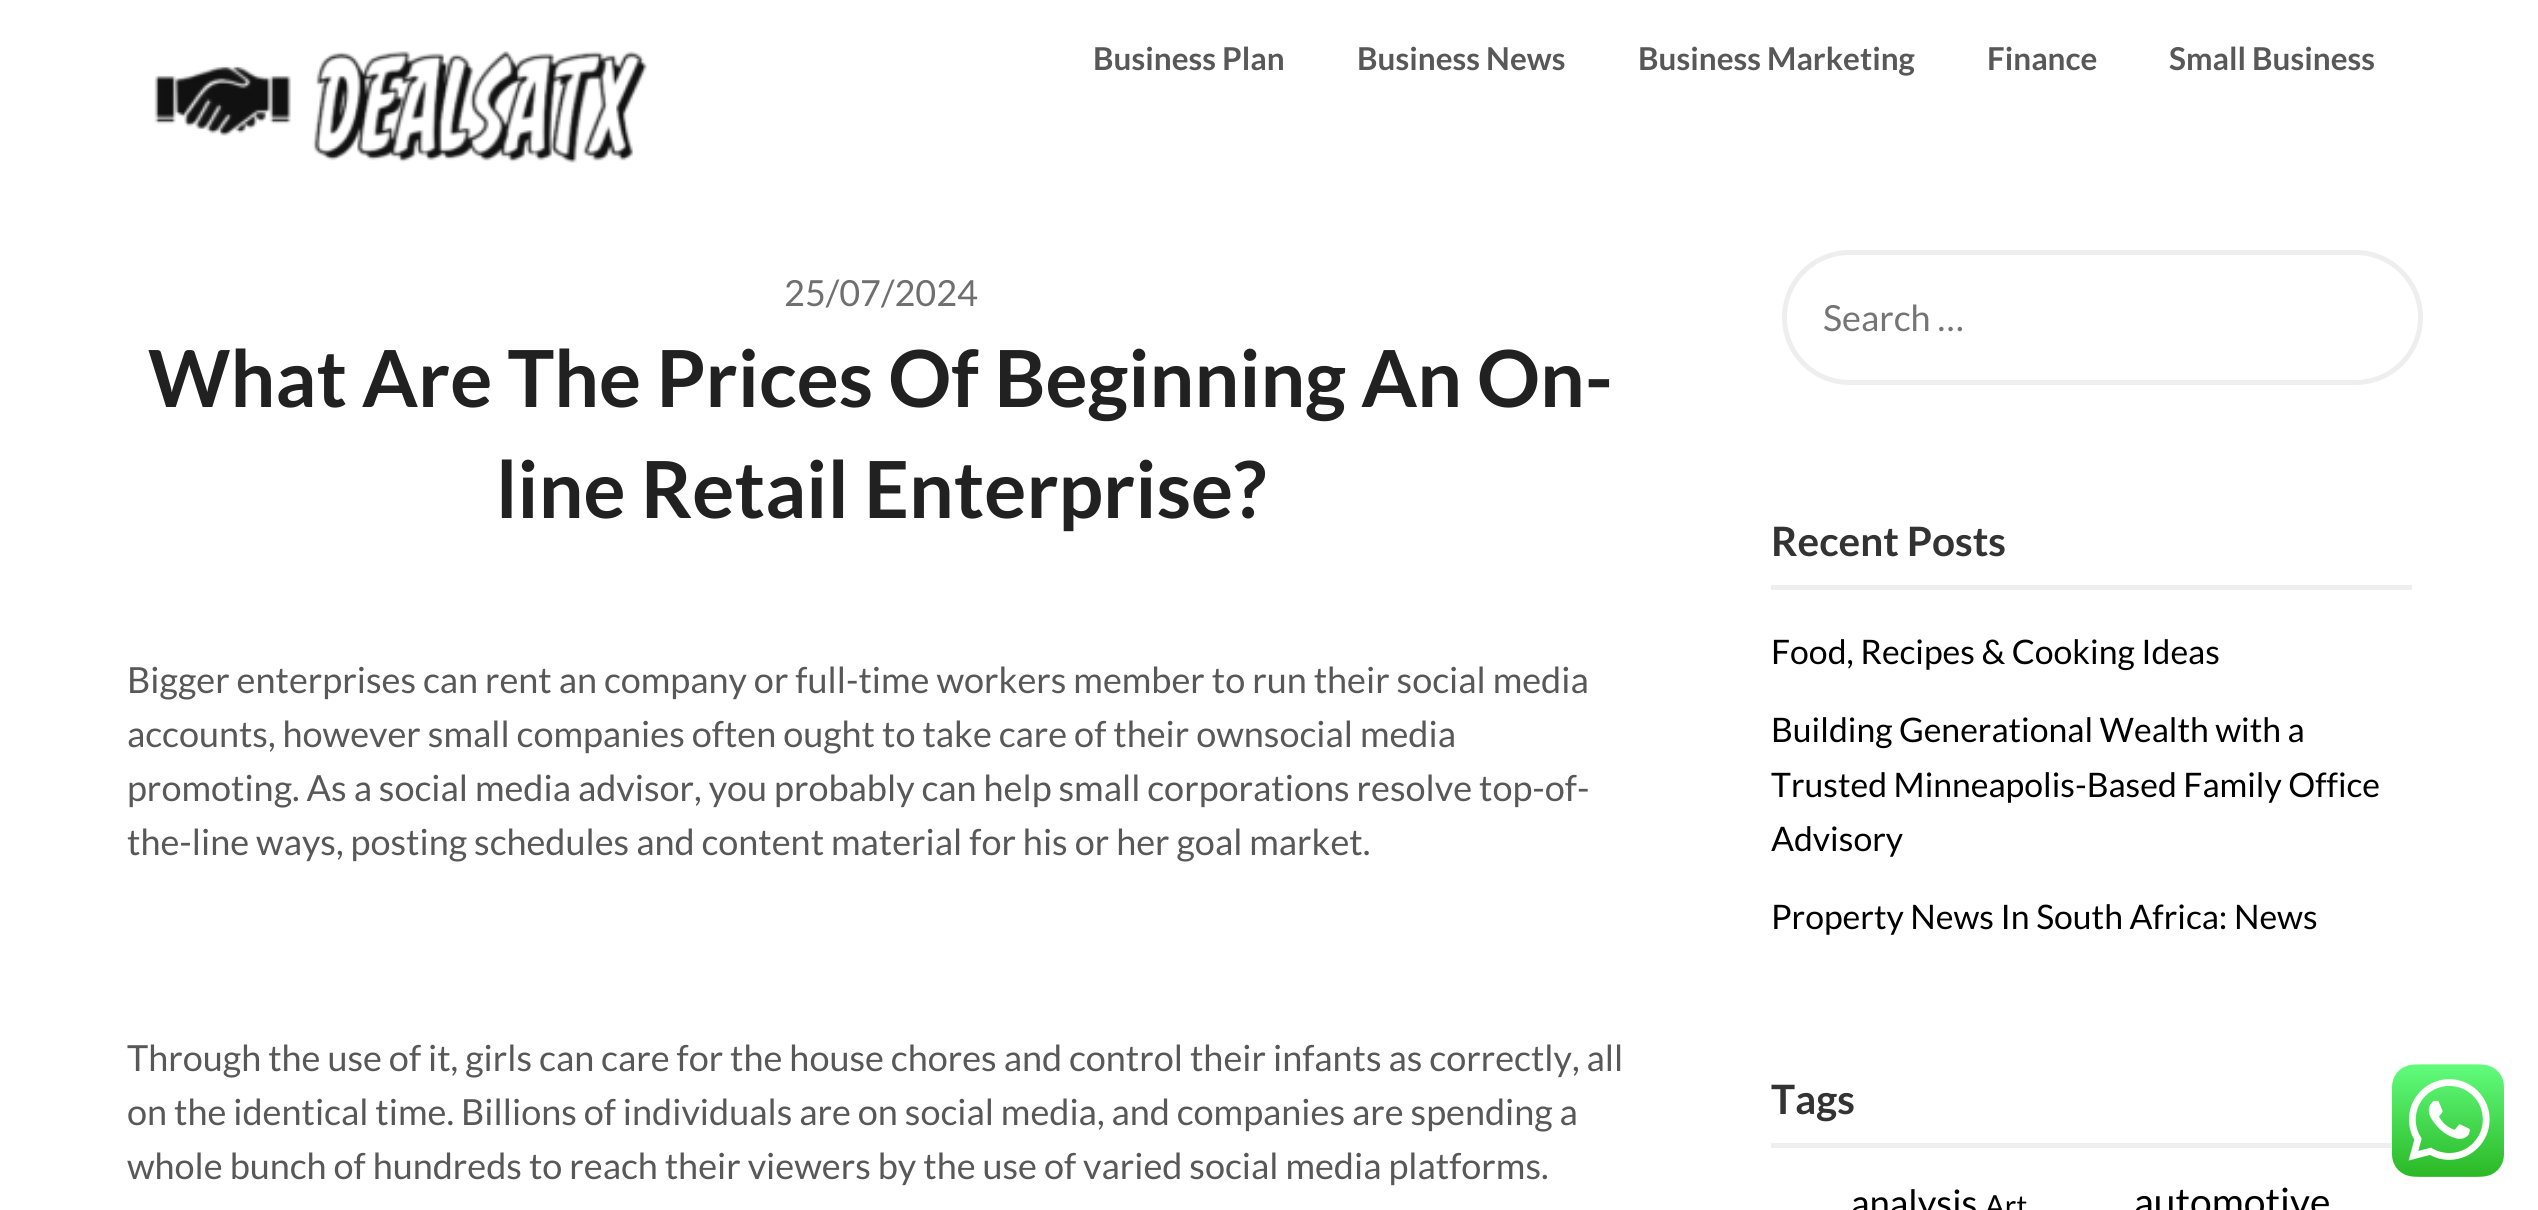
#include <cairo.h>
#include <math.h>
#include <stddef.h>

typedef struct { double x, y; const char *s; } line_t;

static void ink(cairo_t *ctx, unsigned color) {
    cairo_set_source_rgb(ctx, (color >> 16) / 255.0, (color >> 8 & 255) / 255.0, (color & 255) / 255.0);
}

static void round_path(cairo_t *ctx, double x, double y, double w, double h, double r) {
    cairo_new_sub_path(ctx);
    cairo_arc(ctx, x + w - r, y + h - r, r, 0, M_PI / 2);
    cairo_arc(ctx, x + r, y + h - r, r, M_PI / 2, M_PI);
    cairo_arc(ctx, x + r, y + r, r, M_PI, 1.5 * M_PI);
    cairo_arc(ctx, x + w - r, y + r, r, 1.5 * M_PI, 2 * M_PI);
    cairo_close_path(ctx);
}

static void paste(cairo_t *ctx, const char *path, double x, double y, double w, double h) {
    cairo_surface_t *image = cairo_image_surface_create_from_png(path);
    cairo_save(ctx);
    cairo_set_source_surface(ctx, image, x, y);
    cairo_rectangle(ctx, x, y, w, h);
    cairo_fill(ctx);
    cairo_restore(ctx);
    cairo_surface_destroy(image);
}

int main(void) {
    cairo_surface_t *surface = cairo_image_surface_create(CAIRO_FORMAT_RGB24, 2538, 1210);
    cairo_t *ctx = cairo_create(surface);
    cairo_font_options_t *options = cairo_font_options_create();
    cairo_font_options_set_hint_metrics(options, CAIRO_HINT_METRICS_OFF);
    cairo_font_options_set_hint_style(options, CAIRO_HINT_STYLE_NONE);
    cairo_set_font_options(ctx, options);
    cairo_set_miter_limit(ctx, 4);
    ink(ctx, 0xFFFFFF);
    cairo_paint(ctx);
    paste(ctx, "media/1.png", 154, 51, 494, 112);
    cairo_select_font_face(ctx, "Lato", CAIRO_FONT_SLANT_NORMAL, CAIRO_FONT_WEIGHT_BOLD);
    cairo_set_font_size(ctx, 31.5);
    ink(ctx, 0x585858);
    {
        static const line_t items[] = {
            {1093, 70, "Business Plan"},
            {1357, 70, "Business News"},
            {1638, 70, "Business Marketing"},
            {1987, 70, "Finance"},
            {2169, 70, "Small Business"},
        };
        for (size_t i = 0; i < sizeof items / sizeof *items; i++) {
            cairo_move_to(ctx, items[i].x, items[i].y);
            cairo_show_text(ctx, items[i].s);
        }
    }
    cairo_select_font_face(ctx, "Lato", CAIRO_FONT_SLANT_NORMAL, CAIRO_FONT_WEIGHT_NORMAL);
    cairo_set_font_size(ctx, 36);
    ink(ctx, 0x6F6F6F);
    cairo_move_to(ctx, 784, 306);
    cairo_show_text(ctx, "25/07/2024");
    cairo_select_font_face(ctx, "Lato", CAIRO_FONT_SLANT_NORMAL, CAIRO_FONT_WEIGHT_BOLD);
    cairo_set_font_size(ctx, 78.75);
    ink(ctx, 0x212121);
    cairo_move_to(ctx, 148, 407);
    cairo_show_text(ctx, "What Are The Prices Of Beginning An On-");
    cairo_move_to(ctx, 496, 518);
    cairo_show_text(ctx, "line Retail Enterprise?");
    cairo_select_font_face(ctx, "Lato", CAIRO_FONT_SLANT_NORMAL, CAIRO_FONT_WEIGHT_NORMAL);
    cairo_set_font_size(ctx, 36);
    ink(ctx, 0x585858);
    {
        static const line_t items[] = {
            {127, 693, "Bigger enterprises can rent an company or full-time workers member to run their social media"},
            {127, 747, "accounts, however small companies often ought to take care of their ownsocial media"},
            {127, 801, "promoting. As a social media advisor, you probably can help small corporations resolve top-of-"},
            {127, 855, "the-line ways, posting schedules and content material for his or her goal market."},
            {127, 1071, "Through the use of it, girls can care for the house chores and control their infants as correctly, all"},
            {127, 1125, "on the identical time. Billions of individuals are on social media, and companies are spending a"},
            {127, 1179, "whole bunch of hundreds to reach their viewers by the use of varied social media platforms."},
        };
        for (size_t i = 0; i < sizeof items / sizeof *items; i++) {
            cairo_move_to(ctx, items[i].x, items[i].y);
            cairo_show_text(ctx, items[i].s);
        }
    }
    round_path(ctx, 1784.5, 252.5, 636, 130, 65);
    ink(ctx, 0xEEEEEE);
    cairo_set_line_width(ctx, 5);
    cairo_stroke(ctx);
    ink(ctx, 0x757575);
    cairo_move_to(ctx, 1823, 331);
    cairo_show_text(ctx, "Search …");
    ink(ctx, 0xEEEEEE);
    cairo_rectangle(ctx, 1771, 585, 641, 5);
    cairo_fill(ctx);
    cairo_select_font_face(ctx, "Lato", CAIRO_FONT_SLANT_NORMAL, CAIRO_FONT_WEIGHT_BOLD);
    cairo_set_font_size(ctx, 40.5);
    ink(ctx, 0x333333);
    cairo_move_to(ctx, 1771, 556);
    cairo_show_text(ctx, "Recent Posts");
    cairo_select_font_face(ctx, "Lato", CAIRO_FONT_SLANT_NORMAL, CAIRO_FONT_WEIGHT_NORMAL);
    cairo_set_font_size(ctx, 33.75);
    ink(ctx, 0x000000);
    {
        static const line_t items[] = {
            {1771, 664, "Food, Recipes & Cooking Ideas"},
            {1771, 742, "Building Generational Wealth with a"},
            {1771, 797, "Trusted Minneapolis-Based Family Office"},
            {1771, 851, "Advisory"},
            {1771, 929, "Property News In South Africa: News"},
        };
        for (size_t i = 0; i < sizeof items / sizeof *items; i++) {
            cairo_move_to(ctx, items[i].x, items[i].y);
            cairo_show_text(ctx, items[i].s);
        }
    }
    ink(ctx, 0xEEEEEE);
    cairo_rectangle(ctx, 1771, 1143, 621, 5);
    cairo_fill(ctx);
    cairo_select_font_face(ctx, "Lato", CAIRO_FONT_SLANT_NORMAL, CAIRO_FONT_WEIGHT_BOLD);
    cairo_set_font_size(ctx, 40.5);
    ink(ctx, 0x333333);
    cairo_move_to(ctx, 1771, 1114);
    cairo_show_text(ctx, "Tags");
    cairo_select_font_face(ctx, "Lato", CAIRO_FONT_SLANT_NORMAL, CAIRO_FONT_WEIGHT_NORMAL);
    cairo_set_font_size(ctx, 36.5);
    ink(ctx, 0x000000);
    cairo_move_to(ctx, 1851, 1216);
    cairo_show_text(ctx, "analysis");
    cairo_set_font_size(ctx, 29);
    cairo_move_to(ctx, 1985, 1216);
    cairo_show_text(ctx, "Art");
    cairo_set_font_size(ctx, 39);
    cairo_move_to(ctx, 2134, 1216);
    cairo_show_text(ctx, "automotive");
    paste(ctx, "media/2.png", 2392, 1064, 112, 113);
    cairo_surface_write_to_png(surface, "image.png");
    cairo_font_options_destroy(options);
    cairo_destroy(ctx);
    cairo_surface_destroy(surface);
    return 0;
}
